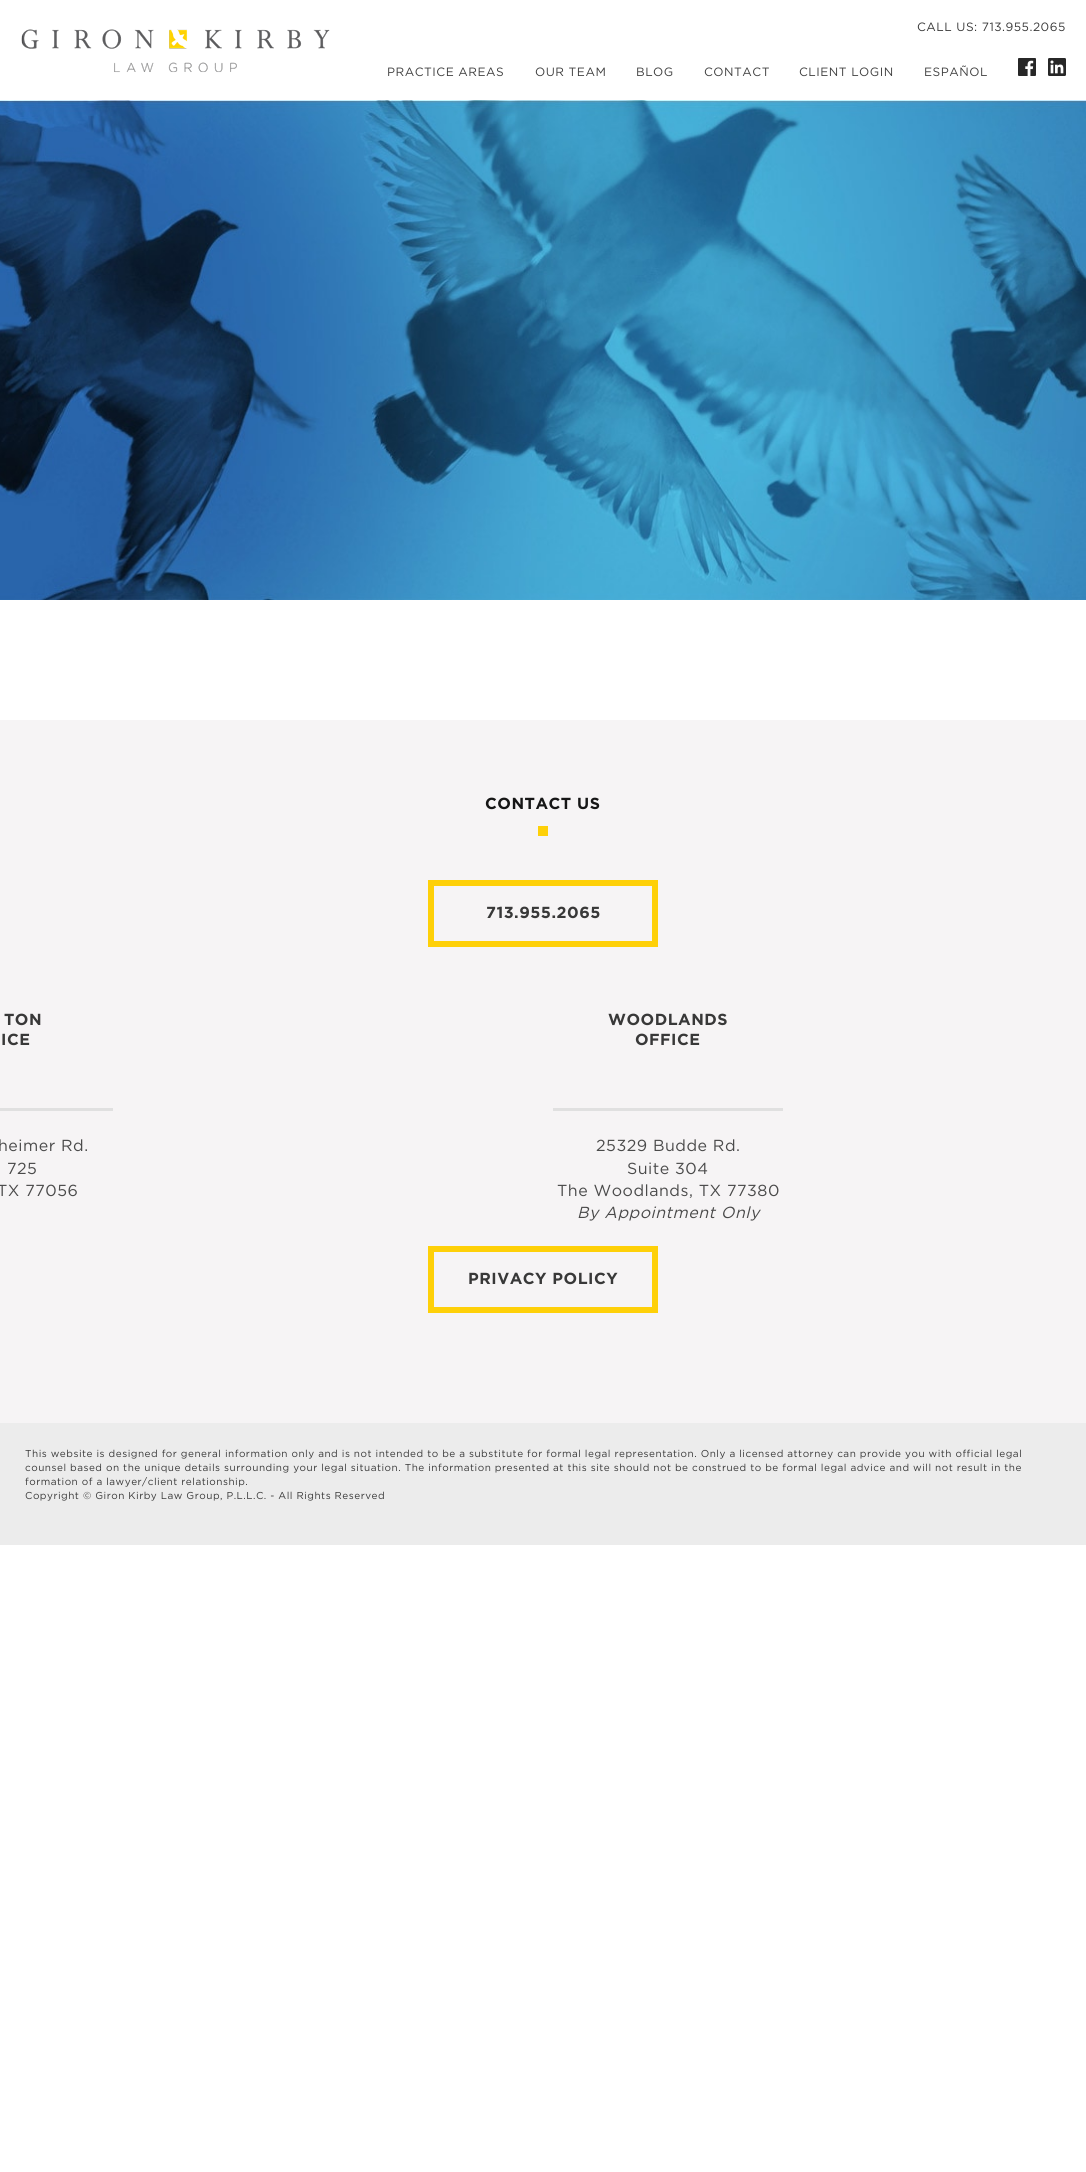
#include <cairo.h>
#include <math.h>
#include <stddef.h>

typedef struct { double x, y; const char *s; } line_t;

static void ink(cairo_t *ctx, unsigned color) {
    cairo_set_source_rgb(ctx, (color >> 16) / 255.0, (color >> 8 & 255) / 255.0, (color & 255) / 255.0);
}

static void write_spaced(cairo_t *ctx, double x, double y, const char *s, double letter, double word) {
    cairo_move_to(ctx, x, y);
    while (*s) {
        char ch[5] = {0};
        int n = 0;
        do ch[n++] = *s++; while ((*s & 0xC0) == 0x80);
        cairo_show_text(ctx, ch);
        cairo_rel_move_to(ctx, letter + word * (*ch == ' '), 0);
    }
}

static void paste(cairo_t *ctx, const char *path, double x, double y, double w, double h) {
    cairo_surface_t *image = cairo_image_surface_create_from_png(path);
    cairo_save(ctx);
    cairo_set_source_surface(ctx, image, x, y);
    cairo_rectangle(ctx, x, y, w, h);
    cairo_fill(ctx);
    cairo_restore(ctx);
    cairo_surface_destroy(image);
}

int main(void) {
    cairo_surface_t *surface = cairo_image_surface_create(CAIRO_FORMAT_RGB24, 1086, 2172);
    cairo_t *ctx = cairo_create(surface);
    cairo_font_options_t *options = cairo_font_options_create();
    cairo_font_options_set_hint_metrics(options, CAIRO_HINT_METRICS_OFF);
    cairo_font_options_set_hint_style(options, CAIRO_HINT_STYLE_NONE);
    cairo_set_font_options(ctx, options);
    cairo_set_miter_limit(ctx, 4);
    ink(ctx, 0xFFFFFF);
    cairo_paint(ctx);
    paste(ctx, "media/1.png", 21, 29, 309, 44);
    cairo_select_font_face(ctx, "Gotham", CAIRO_FONT_SLANT_NORMAL, CAIRO_FONT_WEIGHT_NORMAL);
    cairo_set_font_size(ctx, 12);
    ink(ctx, 0x383838);
    write_spaced(ctx, 917, 31, "CALL US: 713.955.2065", 0.5, 0);
    ink(ctx, 0x404040);
    {
        static const line_t items[] = {
            {387, 76, "PRACTICE AREAS"},
            {535, 76, "OUR TEAM"},
            {636, 76, "BLOG"},
            {704, 76, "CONTACT"},
            {799, 76, "CLIENT LOGIN"},
            {924, 76, "ESPAÑOL"},
        };
        for (size_t i = 0; i < sizeof items / sizeof *items; i++) {
            write_spaced(ctx, items[i].x, items[i].y, items[i].s, 0.5, 0);
        }
    }
    paste(ctx, "media/2.png", 1018, 58, 18, 18);
    paste(ctx, "media/3.png", 1048, 58, 18, 18);
    paste(ctx, "media/4.png", 0, 100, 1086, 500);
    ink(ctx, 0xF6F4F5);
    cairo_rectangle(ctx, 0, 720, 1086, 703);
    cairo_fill(ctx);
    cairo_select_font_face(ctx, "Gotham", CAIRO_FONT_SLANT_NORMAL, CAIRO_FONT_WEIGHT_BOLD);
    cairo_set_font_size(ctx, 16);
    ink(ctx, 0x161616);
    write_spaced(ctx, 485, 809, "CONTACT US", 0.5, 0);
    ink(ctx, 0xFED008);
    cairo_rectangle(ctx, 538, 826, 10, 10);
    cairo_fill(ctx);
    cairo_rectangle(ctx, 431, 883, 224, 61);
    cairo_set_line_width(ctx, 6);
    cairo_stroke(ctx);
    ink(ctx, 0x383838);
    {
        static const line_t items[] = {
            {486, 918, "713.955.2065"},
            {4, 1025, "TON"},
            {1, 1045, "ICE"},
        };
        for (size_t i = 0; i < sizeof items / sizeof *items; i++) {
            write_spaced(ctx, items[i].x, items[i].y, items[i].s, 0.5, 0);
        }
    }
    ink(ctx, 0xE0E0E0);
    cairo_rectangle(ctx, 0, 1108, 113, 3);
    cairo_fill(ctx);
    cairo_select_font_face(ctx, "Gotham", CAIRO_FONT_SLANT_NORMAL, CAIRO_FONT_WEIGHT_NORMAL);
    ink(ctx, 0x4A4A4A);
    {
        static const line_t items[] = {
            {-2, 1151, "heimer Rd."},
            {7, 1174, "725"},
            {-3, 1196, "TX 77056"},
        };
        for (size_t i = 0; i < sizeof items / sizeof *items; i++) {
            write_spaced(ctx, items[i].x, items[i].y, items[i].s, 0.5, 0);
        }
    }
    cairo_select_font_face(ctx, "Gotham", CAIRO_FONT_SLANT_NORMAL, CAIRO_FONT_WEIGHT_BOLD);
    ink(ctx, 0x383838);
    write_spaced(ctx, 608, 1025, "WOODLANDS", 0.5, 0);
    write_spaced(ctx, 635, 1045, "OFFICE", 0.5, 0);
    ink(ctx, 0xE0E0E0);
    cairo_rectangle(ctx, 553, 1108, 230, 3);
    cairo_fill(ctx);
    cairo_select_font_face(ctx, "Gotham", CAIRO_FONT_SLANT_NORMAL, CAIRO_FONT_WEIGHT_NORMAL);
    ink(ctx, 0x4A4A4A);
    {
        static const line_t items[] = {
            {596, 1151, "25329 Budde Rd."},
            {627, 1174, "Suite 304"},
            {557, 1196, "The Woodlands, TX 77380"},
        };
        for (size_t i = 0; i < sizeof items / sizeof *items; i++) {
            write_spaced(ctx, items[i].x, items[i].y, items[i].s, 0.5, 0);
        }
    }
    cairo_select_font_face(ctx, "Gotham", CAIRO_FONT_SLANT_ITALIC, CAIRO_FONT_WEIGHT_NORMAL);
    write_spaced(ctx, 577, 1218, "By Appointment Only", 0.5, 0);
    cairo_rectangle(ctx, 431, 1249, 224, 61);
    ink(ctx, 0xFED008);
    cairo_stroke(ctx);
    cairo_select_font_face(ctx, "Gotham", CAIRO_FONT_SLANT_NORMAL, CAIRO_FONT_WEIGHT_BOLD);
    ink(ctx, 0x383838);
    write_spaced(ctx, 468, 1284, "PRIVACY POLICY", 0.5, 0);
    ink(ctx, 0xECECEC);
    cairo_rectangle(ctx, 0, 1423, 1086, 122);
    cairo_fill(ctx);
    cairo_select_font_face(ctx, "Gotham", CAIRO_FONT_SLANT_NORMAL, CAIRO_FONT_WEIGHT_NORMAL);
    cairo_set_font_size(ctx, 10);
    ink(ctx, 0x383838);
    {
        static const line_t items[] = {
            {25, 1457, "This website is designed for general information only and is not intended to be a substitute for formal legal representation. Only a licensed attorney can provide you with official legal"},
            {25, 1471, "counsel based on the unique details surrounding your legal situation. The information presented at this site should not be construed to be formal legal advice and will not result in the"},
            {25, 1485, "formation of a lawyer/client relationship."},
            {25, 1499, "Copyright © Giron Kirby Law Group, P.L.L.C. - All Rights Reserved"},
        };
        for (size_t i = 0; i < sizeof items / sizeof *items; i++) {
            write_spaced(ctx, items[i].x, items[i].y, items[i].s, 0.5, 0);
        }
    }
    cairo_surface_write_to_png(surface, "image.png");
    cairo_font_options_destroy(options);
    cairo_destroy(ctx);
    cairo_surface_destroy(surface);
    return 0;
}
